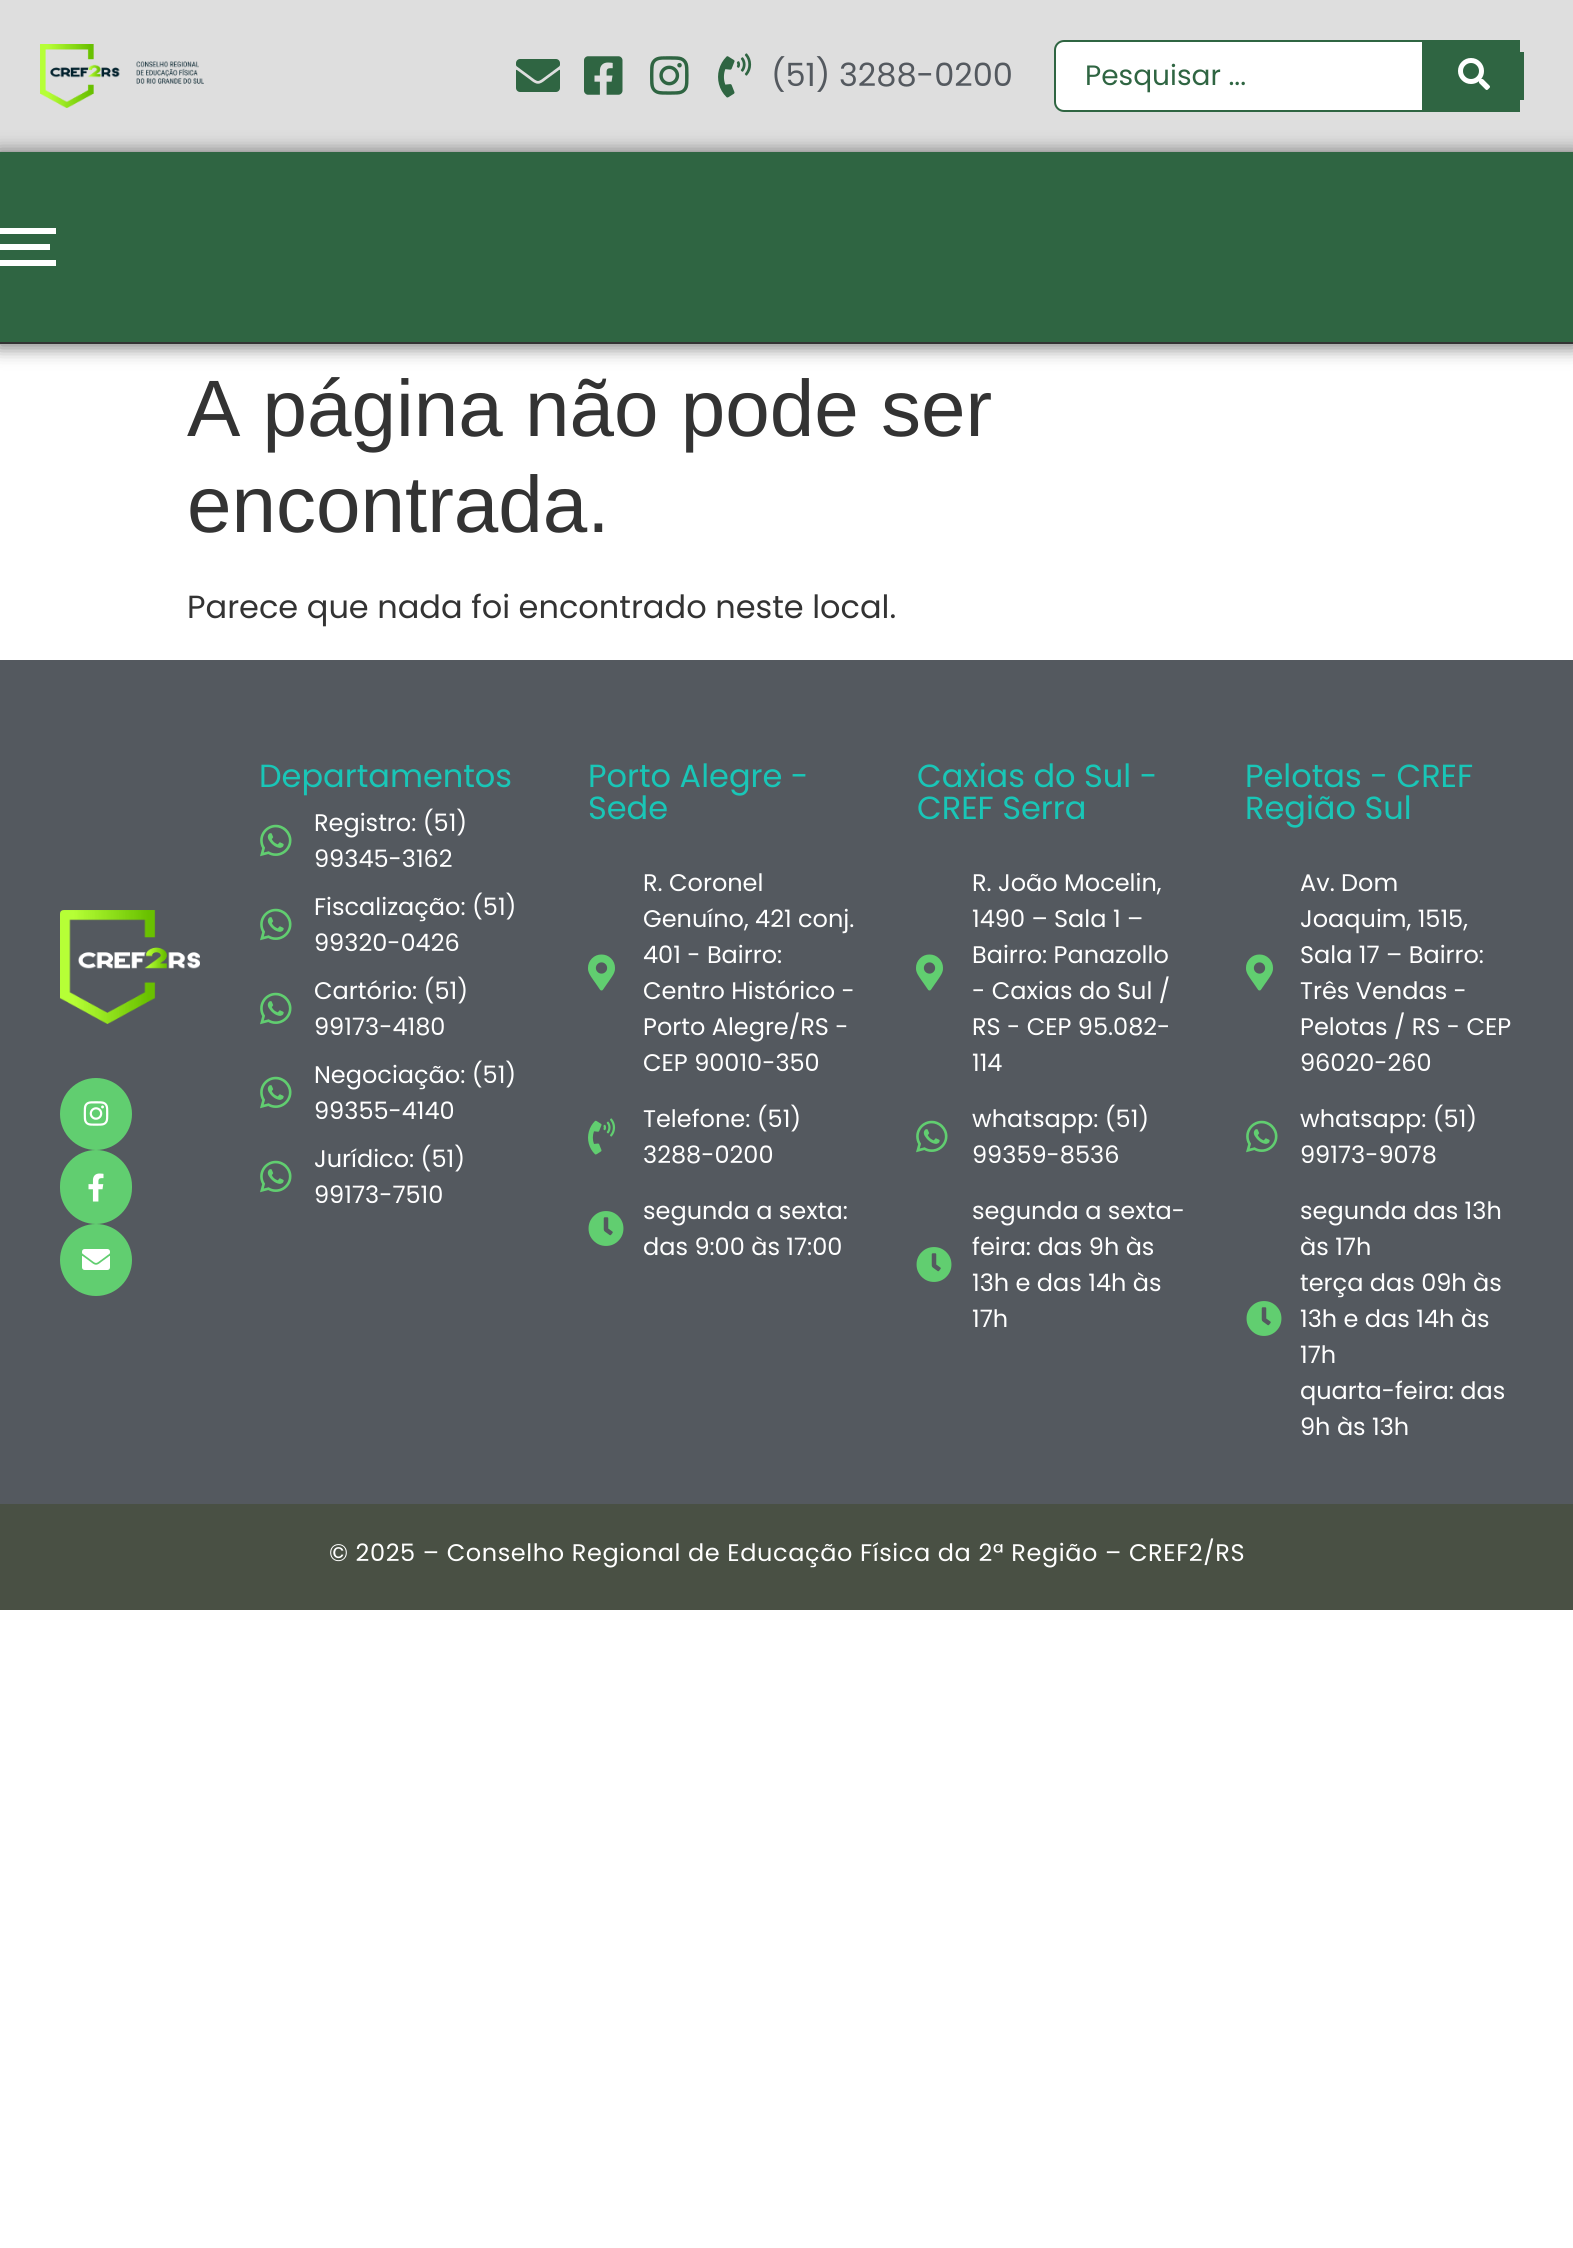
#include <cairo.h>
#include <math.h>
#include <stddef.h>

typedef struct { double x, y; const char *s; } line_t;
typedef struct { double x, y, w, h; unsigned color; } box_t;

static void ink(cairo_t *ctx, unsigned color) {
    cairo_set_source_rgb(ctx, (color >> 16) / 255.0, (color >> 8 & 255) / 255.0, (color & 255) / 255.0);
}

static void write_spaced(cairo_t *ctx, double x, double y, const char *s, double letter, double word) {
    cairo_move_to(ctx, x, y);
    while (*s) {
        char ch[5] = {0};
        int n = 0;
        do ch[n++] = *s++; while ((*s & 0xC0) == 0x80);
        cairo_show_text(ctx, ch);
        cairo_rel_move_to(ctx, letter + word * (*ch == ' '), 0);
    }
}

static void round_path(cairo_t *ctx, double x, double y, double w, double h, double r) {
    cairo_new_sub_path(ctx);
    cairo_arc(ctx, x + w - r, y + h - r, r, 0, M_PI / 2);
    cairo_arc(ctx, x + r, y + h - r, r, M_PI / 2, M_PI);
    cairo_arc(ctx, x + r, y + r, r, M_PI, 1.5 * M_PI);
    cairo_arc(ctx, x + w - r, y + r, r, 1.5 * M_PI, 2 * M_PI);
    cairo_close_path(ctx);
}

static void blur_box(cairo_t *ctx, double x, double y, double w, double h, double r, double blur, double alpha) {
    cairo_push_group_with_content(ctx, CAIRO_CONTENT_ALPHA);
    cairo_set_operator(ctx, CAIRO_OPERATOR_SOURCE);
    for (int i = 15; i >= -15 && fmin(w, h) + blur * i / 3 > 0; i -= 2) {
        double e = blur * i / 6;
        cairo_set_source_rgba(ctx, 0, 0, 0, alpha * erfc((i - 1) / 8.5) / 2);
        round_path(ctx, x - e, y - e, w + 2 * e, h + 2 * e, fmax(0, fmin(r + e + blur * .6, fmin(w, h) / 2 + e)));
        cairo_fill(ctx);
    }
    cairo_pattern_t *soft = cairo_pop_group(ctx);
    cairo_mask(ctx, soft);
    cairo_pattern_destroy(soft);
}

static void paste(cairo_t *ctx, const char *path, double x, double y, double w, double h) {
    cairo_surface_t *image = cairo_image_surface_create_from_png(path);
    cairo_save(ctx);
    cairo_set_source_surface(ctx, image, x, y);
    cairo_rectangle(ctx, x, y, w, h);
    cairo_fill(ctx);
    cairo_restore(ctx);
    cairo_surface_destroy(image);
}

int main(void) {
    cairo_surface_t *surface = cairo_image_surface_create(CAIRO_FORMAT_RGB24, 1573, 2248);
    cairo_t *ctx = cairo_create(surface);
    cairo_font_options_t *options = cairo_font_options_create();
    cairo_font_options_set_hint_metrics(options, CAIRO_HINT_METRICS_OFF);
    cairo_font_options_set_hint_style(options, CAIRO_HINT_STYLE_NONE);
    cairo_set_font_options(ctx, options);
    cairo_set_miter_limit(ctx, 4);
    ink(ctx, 0xFFFFFF);
    cairo_paint(ctx);
    ink(ctx, 0xDEDEDE);
    cairo_rectangle(ctx, 0, 0, 1573, 152);
    cairo_fill(ctx);
    paste(ctx, "media/1.png", 40, 44, 164, 64);
    paste(ctx, "media/2.png", 516, 59, 44, 33);
    paste(ctx, "media/3.png", 584, 56, 39, 39);
    paste(ctx, "media/4.png", 650, 56, 39, 39);
    paste(ctx, "media/5.png", 718, 53, 34, 45);
    cairo_select_font_face(ctx, "Poppins", CAIRO_FONT_SLANT_NORMAL, CAIRO_FONT_WEIGHT_NORMAL);
    cairo_set_font_size(ctx, 32);
    ink(ctx, 0x54595F);
    cairo_move_to(ctx, 771, 86);
    cairo_show_text(ctx, "(51) 3288-0200");
    ink(ctx, 0xFFFFFF);
    cairo_new_path(ctx);
    cairo_move_to(ctx, 1064, 41);
    cairo_line_to(ctx, 1423, 41);
    cairo_line_to(ctx, 1423, 111);
    cairo_line_to(ctx, 1064, 111);
    cairo_curve_to(ctx, 1059, 111, 1055, 107, 1055, 102);
    cairo_line_to(ctx, 1055, 50);
    cairo_curve_to(ctx, 1055, 45, 1059, 41, 1064, 41);
    cairo_close_path(ctx);
    cairo_fill_preserve(ctx);
    ink(ctx, 0x2F6542);
    cairo_stroke(ctx);
    cairo_set_font_size(ctx, 28);
    cairo_move_to(ctx, 1085, 85);
    cairo_show_text(ctx, "Pesquisar ...");
    {
        static const box_t items[] = {
            {1424, 52, 100, 48, 0x2F6542},
            {1424, 40, 96, 12, 0x2F6542},
            {1424, 100, 96, 12, 0x2F6542},
        };
        for (size_t i = 0; i < sizeof items / sizeof *items; i++) {
            ink(ctx, items[i].color);
            cairo_rectangle(ctx, items[i].x, items[i].y, items[i].w, items[i].h);
            cairo_fill(ctx);
        }
    }
    paste(ctx, "media/6.png", 1458, 58, 32, 32);
    ink(ctx, 0x000000);
    blur_box(ctx, -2, 152, 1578, 196, 0, 9, 0.5);
    {
        static const box_t items[] = {
            {0, 152, 1573, 190, 0x2F6542},
            {0, 342, 1573, 2, 0x333333},
            {0, 228, 56, 6, 0xFFFFFF},
            {0, 244, 50, 6, 0xFFFFFF},
            {0, 260, 56, 6, 0xFFFFFF},
        };
        for (size_t i = 0; i < sizeof items / sizeof *items; i++) {
            ink(ctx, items[i].color);
            cairo_rectangle(ctx, items[i].x, items[i].y, items[i].w, items[i].h);
            cairo_fill(ctx);
        }
    }
    cairo_select_font_face(ctx, "Liberation Sans", CAIRO_FONT_SLANT_NORMAL, CAIRO_FONT_WEIGHT_NORMAL);
    cairo_set_font_size(ctx, 80);
    ink(ctx, 0x333333);
    cairo_move_to(ctx, 187, 436);
    cairo_show_text(ctx, "A página não pode ser");
    cairo_move_to(ctx, 187, 532);
    cairo_show_text(ctx, "encontrada.");
    cairo_select_font_face(ctx, "Poppins", CAIRO_FONT_SLANT_NORMAL, CAIRO_FONT_WEIGHT_NORMAL);
    cairo_set_font_size(ctx, 32);
    cairo_move_to(ctx, 187, 618);
    cairo_show_text(ctx, "Parece que nada foi encontrado neste local.");
    ink(ctx, 0x54595F);
    cairo_rectangle(ctx, 0, 660, 1573, 844);
    cairo_fill(ctx);
    paste(ctx, "media/7.png", 60, 910, 140, 114);
    ink(ctx, 0x61CE70);
    cairo_arc(ctx, 96, 1114, 36, 0, 2 * M_PI);
    cairo_fill(ctx);
    paste(ctx, "media/8.png", 83, 1101, 26, 25);
    round_path(ctx, 60, 1150, 72, 74, 36);
    cairo_fill(ctx);
    paste(ctx, "media/9.png", 88, 1173, 16, 29);
    cairo_arc(ctx, 96, 1260, 36, 0, 2 * M_PI);
    cairo_fill(ctx);
    paste(ctx, "media/10.png", 82, 1249, 28, 21);
    ink(ctx, 0x19C6B7);
    cairo_move_to(ctx, 259, 787);
    cairo_show_text(ctx, "Departamentos");
    paste(ctx, "media/11.png", 260, 824, 32, 33);
    cairo_set_font_size(ctx, 24);
    ink(ctx, 0xFFFFFF);
    cairo_move_to(ctx, 314, 831);
    cairo_show_text(ctx, "Registro: (51)");
    cairo_move_to(ctx, 314, 867);
    cairo_show_text(ctx, "99345-3162");
    paste(ctx, "media/11.png", 260, 908, 32, 33);
    cairo_move_to(ctx, 314, 915);
    cairo_show_text(ctx, "Fiscalização: (51)");
    cairo_move_to(ctx, 314, 951);
    cairo_show_text(ctx, "99320-0426");
    paste(ctx, "media/11.png", 260, 992, 32, 33);
    cairo_move_to(ctx, 314, 999);
    cairo_show_text(ctx, "Cartório: (51)");
    cairo_move_to(ctx, 314, 1035);
    cairo_show_text(ctx, "99173-4180");
    paste(ctx, "media/11.png", 260, 1076, 32, 33);
    cairo_move_to(ctx, 314, 1083);
    cairo_show_text(ctx, "Negociação: (51)");
    cairo_move_to(ctx, 314, 1119);
    cairo_show_text(ctx, "99355-4140");
    paste(ctx, "media/11.png", 260, 1160, 32, 33);
    cairo_move_to(ctx, 314, 1167);
    cairo_show_text(ctx, "Jurídico: (51)");
    cairo_move_to(ctx, 314, 1203);
    cairo_show_text(ctx, "99173-7510");
    cairo_set_font_size(ctx, 32);
    ink(ctx, 0x19C6B7);
    cairo_move_to(ctx, 588, 787);
    cairo_show_text(ctx, "Porto Alegre -");
    cairo_move_to(ctx, 588, 819);
    cairo_show_text(ctx, "Sede");
    paste(ctx, "media/12.png", 588, 954, 27, 37);
    cairo_set_font_size(ctx, 24);
    ink(ctx, 0xFFFFFF);
    {
        static const line_t items[] = {
            {643, 891, "R. Coronel"},
            {643, 927, "Genuíno, 421 conj."},
            {643, 963, "401 - Bairro:"},
            {643, 999, "Centro Histórico -"},
            {643, 1035, "Porto Alegre/RS -"},
            {643, 1071, "CEP 90010-350"},
        };
        for (size_t i = 0; i < sizeof items / sizeof *items; i++) {
            cairo_move_to(ctx, items[i].x, items[i].y);
            cairo_show_text(ctx, items[i].s);
        }
    }
    paste(ctx, "media/13.png", 588, 1118, 28, 37);
    cairo_move_to(ctx, 643, 1127);
    cairo_show_text(ctx, "Telefone: (51)");
    cairo_move_to(ctx, 643, 1163);
    cairo_show_text(ctx, "3288-0200");
    paste(ctx, "media/14.png", 588, 1211, 36, 35);
    cairo_move_to(ctx, 643, 1219);
    cairo_show_text(ctx, "segunda a sexta:");
    cairo_move_to(ctx, 643, 1255);
    cairo_show_text(ctx, "das 9:00 às 17:00");
    cairo_set_font_size(ctx, 32);
    ink(ctx, 0x19C6B7);
    cairo_move_to(ctx, 917, 787);
    cairo_show_text(ctx, "Caxias do Sul -");
    cairo_move_to(ctx, 917, 819);
    cairo_show_text(ctx, "CREF Serra");
    paste(ctx, "media/12.png", 916, 954, 27, 37);
    cairo_set_font_size(ctx, 24);
    ink(ctx, 0xFFFFFF);
    {
        static const line_t items[] = {
            {972, 891, "R. João Mocelin,"},
            {972, 927, "1490 – Sala 1 –"},
            {972, 963, "Bairro: Panazollo"},
            {972, 999, "- Caxias do Sul /"},
            {972, 1035, "RS - CEP 95.082-"},
            {972, 1071, "114"},
        };
        for (size_t i = 0; i < sizeof items / sizeof *items; i++) {
            cairo_move_to(ctx, items[i].x, items[i].y);
            cairo_show_text(ctx, items[i].s);
        }
    }
    paste(ctx, "media/11.png", 916, 1120, 32, 33);
    cairo_move_to(ctx, 972, 1127);
    cairo_show_text(ctx, "whatsapp: (51)");
    cairo_move_to(ctx, 972, 1163);
    cairo_show_text(ctx, "99359-8536");
    paste(ctx, "media/14.png", 916, 1247, 36, 35);
    {
        static const line_t items[] = {
            {972, 1219, "segunda a sexta-"},
            {972, 1255, "feira: das 9h às"},
            {972, 1291, "13h e das 14h às"},
            {972, 1327, "17h"},
        };
        for (size_t i = 0; i < sizeof items / sizeof *items; i++) {
            cairo_move_to(ctx, items[i].x, items[i].y);
            cairo_show_text(ctx, items[i].s);
        }
    }
    cairo_set_font_size(ctx, 32);
    ink(ctx, 0x19C6B7);
    cairo_move_to(ctx, 1245, 787);
    cairo_show_text(ctx, "Pelotas - CREF");
    cairo_move_to(ctx, 1245, 819);
    cairo_show_text(ctx, "Região Sul");
    paste(ctx, "media/12.png", 1246, 954, 27, 37);
    cairo_set_font_size(ctx, 24);
    ink(ctx, 0xFFFFFF);
    {
        static const line_t items[] = {
            {1300, 891, "Av. Dom"},
            {1300, 927, "Joaquim, 1515,"},
            {1300, 963, "Sala 17 – Bairro:"},
            {1300, 999, "Três Vendas -"},
            {1300, 1035, "Pelotas / RS - CEP"},
            {1300, 1071, "96020-260"},
        };
        for (size_t i = 0; i < sizeof items / sizeof *items; i++) {
            cairo_move_to(ctx, items[i].x, items[i].y);
            cairo_show_text(ctx, items[i].s);
        }
    }
    paste(ctx, "media/11.png", 1246, 1120, 32, 33);
    cairo_move_to(ctx, 1300, 1127);
    cairo_show_text(ctx, "whatsapp: (51)");
    cairo_move_to(ctx, 1300, 1163);
    cairo_show_text(ctx, "99173-9078");
    paste(ctx, "media/14.png", 1246, 1301, 36, 35);
    {
        static const line_t items[] = {
            {1300, 1219, "segunda das 13h"},
            {1300, 1255, "às 17h"},
            {1300, 1291, "terça das 09h às"},
            {1300, 1327, "13h e das 14h às"},
            {1300, 1363, "17h"},
            {1300, 1399, "quarta-feira: das"},
            {1300, 1435, "9h às 13h"},
        };
        for (size_t i = 0; i < sizeof items / sizeof *items; i++) {
            cairo_move_to(ctx, items[i].x, items[i].y);
            cairo_show_text(ctx, items[i].s);
        }
    }
    ink(ctx, 0x495044);
    cairo_rectangle(ctx, 0, 1504, 1573, 106);
    cairo_fill(ctx);
    ink(ctx, 0xFFFFFF);
    write_spaced(ctx, 329, 1561, "© 2025 – Conselho Regional de Educação Física da 2ª Região – CREF2/RS", 0.6, 0);
    cairo_surface_write_to_png(surface, "image.png");
    cairo_font_options_destroy(options);
    cairo_destroy(ctx);
    cairo_surface_destroy(surface);
    return 0;
}
